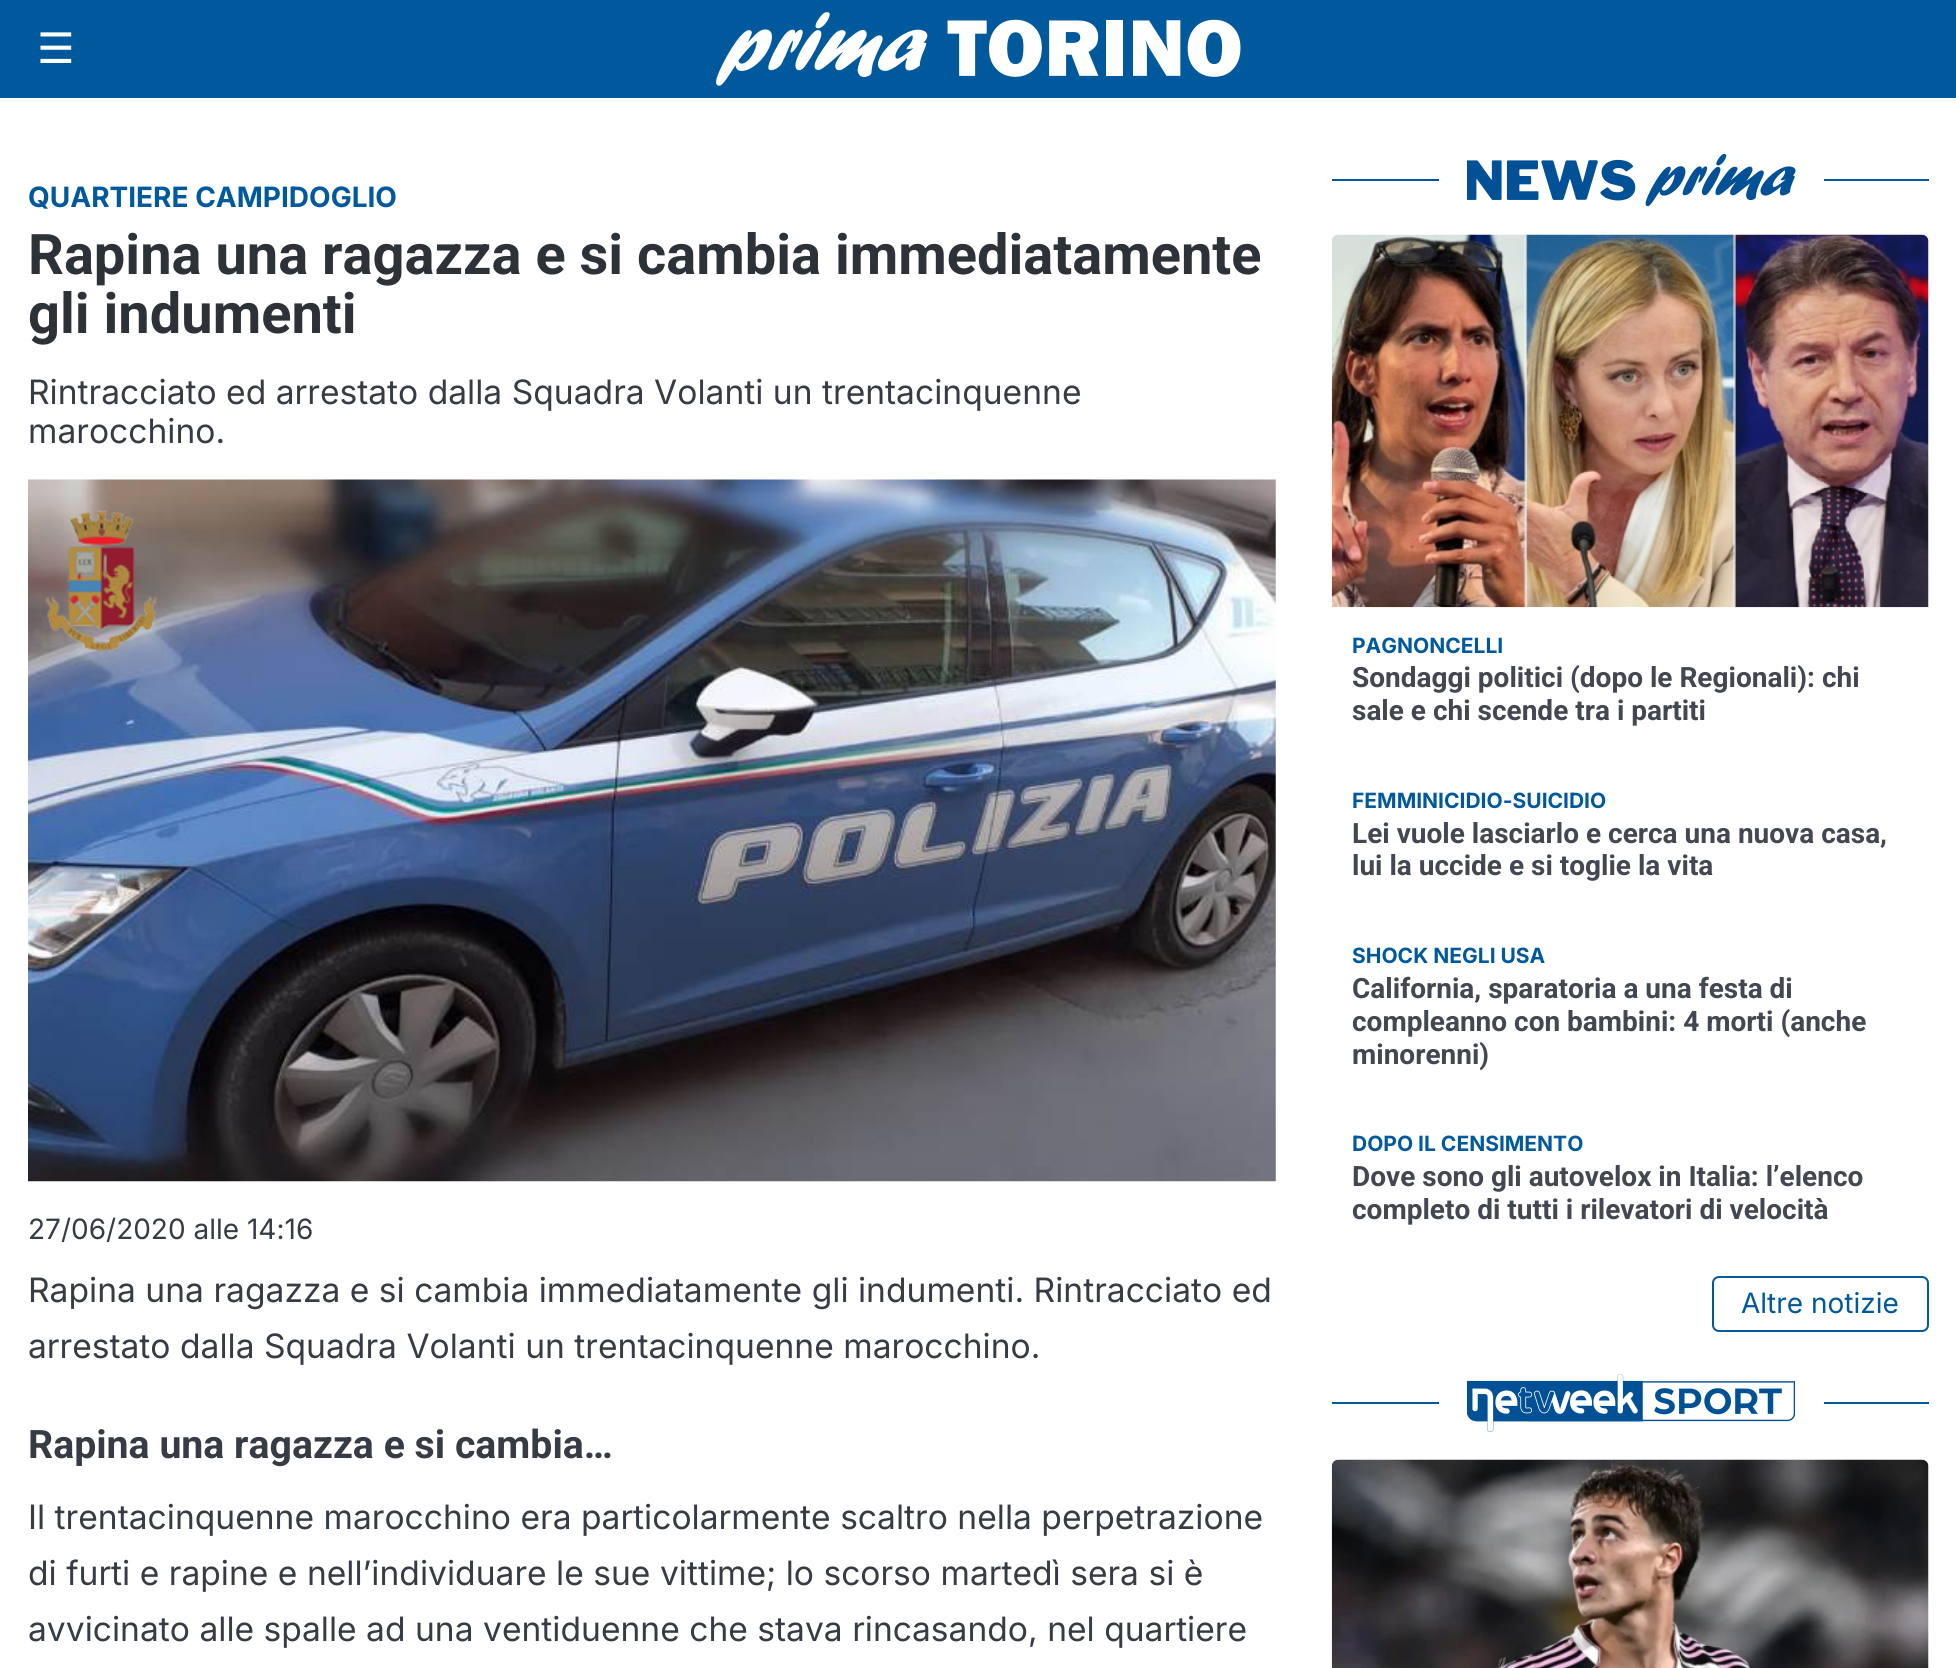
#include <cairo.h>
#include <math.h>
#include <stddef.h>

typedef struct { double x, y; const char *s; } line_t;

static void ink(cairo_t *ctx, unsigned color) {
    cairo_set_source_rgb(ctx, (color >> 16) / 255.0, (color >> 8 & 255) / 255.0, (color & 255) / 255.0);
}

static void round_path(cairo_t *ctx, double x, double y, double w, double h, double r) {
    cairo_new_sub_path(ctx);
    cairo_arc(ctx, x + w - r, y + h - r, r, 0, M_PI / 2);
    cairo_arc(ctx, x + r, y + h - r, r, M_PI / 2, M_PI);
    cairo_arc(ctx, x + r, y + r, r, M_PI, 1.5 * M_PI);
    cairo_arc(ctx, x + w - r, y + r, r, 1.5 * M_PI, 2 * M_PI);
    cairo_close_path(ctx);
}

static void paste(cairo_t *ctx, const char *path, double x, double y, double w, double h) {
    cairo_surface_t *image = cairo_image_surface_create_from_png(path);
    cairo_save(ctx);
    cairo_set_source_surface(ctx, image, x, y);
    cairo_rectangle(ctx, x, y, w, h);
    cairo_fill(ctx);
    cairo_restore(ctx);
    cairo_surface_destroy(image);
}

int main(void) {
    cairo_surface_t *surface = cairo_image_surface_create(CAIRO_FORMAT_RGB24, 1956, 1668);
    cairo_t *ctx = cairo_create(surface);
    cairo_font_options_t *options = cairo_font_options_create();
    cairo_font_options_set_hint_metrics(options, CAIRO_HINT_METRICS_OFF);
    cairo_font_options_set_hint_style(options, CAIRO_HINT_STYLE_NONE);
    cairo_set_font_options(ctx, options);
    cairo_set_miter_limit(ctx, 4);
    ink(ctx, 0xFFFFFF);
    cairo_paint(ctx);
    ink(ctx, 0x00599C);
    cairo_rectangle(ctx, 0, 0, 1956, 98);
    cairo_fill(ctx);
    cairo_select_font_face(ctx, "DejaVu Sans", CAIRO_FONT_SLANT_NORMAL, CAIRO_FONT_WEIGHT_NORMAL);
    cairo_set_font_size(ctx, 42);
    ink(ctx, 0xFFFFFF);
    cairo_move_to(ctx, 37, 63);
    cairo_show_text(ctx, "☰");
    paste(ctx, "media/1.png", 716, 12, 525, 74);
    cairo_select_font_face(ctx, "Inter", CAIRO_FONT_SLANT_NORMAL, CAIRO_FONT_WEIGHT_BOLD);
    cairo_set_font_size(ctx, 28);
    ink(ctx, 0x00599C);
    cairo_move_to(ctx, 28, 207);
    cairo_show_text(ctx, "QUARTIERE CAMPIDOGLIO");
    cairo_select_font_face(ctx, "Roboto", CAIRO_FONT_SLANT_NORMAL, CAIRO_FONT_WEIGHT_BOLD);
    cairo_set_font_size(ctx, 56);
    ink(ctx, 0x2D3138);
    cairo_move_to(ctx, 28, 274);
    cairo_show_text(ctx, "Rapina una ragazza e si cambia immediatamente");
    cairo_move_to(ctx, 28, 333);
    cairo_show_text(ctx, "gli indumenti");
    cairo_select_font_face(ctx, "Inter", CAIRO_FONT_SLANT_NORMAL, CAIRO_FONT_WEIGHT_NORMAL);
    cairo_set_font_size(ctx, 33.6);
    ink(ctx, 0x373C44);
    cairo_move_to(ctx, 28, 404);
    cairo_show_text(ctx, "Rintracciato ed arrestato dalla Squadra Volanti un trentacinquenne");
    cairo_move_to(ctx, 28, 443);
    cairo_show_text(ctx, "marocchino.");
    paste(ctx, "media/2.png", 28, 479, 1248, 703);
    cairo_set_font_size(ctx, 28);
    cairo_move_to(ctx, 28, 1239);
    cairo_show_text(ctx, "27/06/2020 alle 14:16");
    cairo_set_font_size(ctx, 33.6);
    cairo_move_to(ctx, 28, 1302);
    cairo_show_text(ctx, "Rapina una ragazza e si cambia immediatamente gli indumenti. Rintracciato ed");
    cairo_move_to(ctx, 28, 1358);
    cairo_show_text(ctx, "arrestato dalla Squadra Volanti un trentacinquenne marocchino.");
    cairo_select_font_face(ctx, "Roboto", CAIRO_FONT_SLANT_NORMAL, CAIRO_FONT_WEIGHT_BOLD);
    cairo_set_font_size(ctx, 39.25);
    cairo_move_to(ctx, 28, 1458);
    cairo_show_text(ctx, "Rapina una ragazza e si cambia…");
    cairo_select_font_face(ctx, "Inter", CAIRO_FONT_SLANT_NORMAL, CAIRO_FONT_WEIGHT_NORMAL);
    cairo_set_font_size(ctx, 33.6);
    {
        static const line_t items[] = {
            {28, 1529, "Il trentacinquenne marocchino era particolarmente scaltro nella perpetrazione"},
            {28, 1585, "di furti e rapine e nell’individuare le sue vittime; lo scorso martedì sera si è"},
            {28, 1641, "avvicinato alle spalle ad una ventiduenne che stava rincasando, nel quartiere"},
        };
        for (size_t i = 0; i < sizeof items / sizeof *items; i++) {
            cairo_move_to(ctx, items[i].x, items[i].y);
            cairo_show_text(ctx, items[i].s);
        }
    }
    ink(ctx, 0x00599C);
    cairo_rectangle(ctx, 1332, 179, 597, 2);
    cairo_fill(ctx);
    ink(ctx, 0xFFFFFF);
    cairo_rectangle(ctx, 1439, 179, 385, 2);
    cairo_fill(ctx);
    paste(ctx, "media/3.png", 1467, 154, 329, 53);
    paste(ctx, "media/4.png", 1331, 234, 598, 374);
    cairo_select_font_face(ctx, "Inter", CAIRO_FONT_SLANT_NORMAL, CAIRO_FONT_WEIGHT_BOLD);
    cairo_set_font_size(ctx, 21);
    ink(ctx, 0x00599C);
    cairo_move_to(ctx, 1352, 653);
    cairo_show_text(ctx, "PAGNONCELLI");
    cairo_select_font_face(ctx, "Roboto", CAIRO_FONT_SLANT_NORMAL, CAIRO_FONT_WEIGHT_BOLD);
    cairo_set_font_size(ctx, 28);
    ink(ctx, 0x424751);
    cairo_move_to(ctx, 1352, 687);
    cairo_show_text(ctx, "Sondaggi politici (dopo le Regionali): chi");
    cairo_move_to(ctx, 1352, 720);
    cairo_show_text(ctx, "sale e chi scende tra i partiti");
    cairo_select_font_face(ctx, "Inter", CAIRO_FONT_SLANT_NORMAL, CAIRO_FONT_WEIGHT_BOLD);
    cairo_set_font_size(ctx, 21);
    ink(ctx, 0x00599C);
    cairo_move_to(ctx, 1352, 808);
    cairo_show_text(ctx, "FEMMINICIDIO-SUICIDIO");
    cairo_select_font_face(ctx, "Roboto", CAIRO_FONT_SLANT_NORMAL, CAIRO_FONT_WEIGHT_BOLD);
    cairo_set_font_size(ctx, 28);
    ink(ctx, 0x424751);
    cairo_move_to(ctx, 1352, 843);
    cairo_show_text(ctx, "Lei vuole lasciarlo e cerca una nuova casa,");
    cairo_move_to(ctx, 1352, 875);
    cairo_show_text(ctx, "lui la uccide e si toglie la vita");
    cairo_select_font_face(ctx, "Inter", CAIRO_FONT_SLANT_NORMAL, CAIRO_FONT_WEIGHT_BOLD);
    cairo_set_font_size(ctx, 21);
    ink(ctx, 0x00599C);
    cairo_move_to(ctx, 1352, 963);
    cairo_show_text(ctx, "SHOCK NEGLI USA");
    cairo_select_font_face(ctx, "Roboto", CAIRO_FONT_SLANT_NORMAL, CAIRO_FONT_WEIGHT_BOLD);
    cairo_set_font_size(ctx, 28);
    ink(ctx, 0x424751);
    {
        static const line_t items[] = {
            {1352, 998, "California, sparatoria a una festa di"},
            {1352, 1031, "compleanno con bambini: 4 morti (anche"},
            {1352, 1064, "minorenni)"},
        };
        for (size_t i = 0; i < sizeof items / sizeof *items; i++) {
            cairo_move_to(ctx, items[i].x, items[i].y);
            cairo_show_text(ctx, items[i].s);
        }
    }
    cairo_select_font_face(ctx, "Inter", CAIRO_FONT_SLANT_NORMAL, CAIRO_FONT_WEIGHT_BOLD);
    cairo_set_font_size(ctx, 21);
    ink(ctx, 0x00599C);
    cairo_move_to(ctx, 1352, 1151);
    cairo_show_text(ctx, "DOPO IL CENSIMENTO");
    cairo_select_font_face(ctx, "Roboto", CAIRO_FONT_SLANT_NORMAL, CAIRO_FONT_WEIGHT_BOLD);
    cairo_set_font_size(ctx, 28);
    ink(ctx, 0x424751);
    cairo_move_to(ctx, 1352, 1186);
    cairo_show_text(ctx, "Dove sono gli autovelox in Italia: l’elenco");
    cairo_move_to(ctx, 1352, 1219);
    cairo_show_text(ctx, "completo di tutti i rilevatori di velocità");
    round_path(ctx, 1713, 1277, 215, 54, 6);
    ink(ctx, 0x00599C);
    cairo_stroke(ctx);
    cairo_select_font_face(ctx, "Inter", CAIRO_FONT_SLANT_NORMAL, CAIRO_FONT_WEIGHT_NORMAL);
    cairo_move_to(ctx, 1741, 1313);
    cairo_show_text(ctx, "Altre notizie");
    cairo_rectangle(ctx, 1332, 1402, 597, 2);
    cairo_fill(ctx);
    ink(ctx, 0xFFFFFF);
    cairo_rectangle(ctx, 1439, 1402, 385, 2);
    cairo_fill(ctx);
    paste(ctx, "media/5.png", 1467, 1374, 328, 58);
    paste(ctx, "media/6.png", 1331, 1459, 598, 209);
    cairo_surface_write_to_png(surface, "image.png");
    cairo_font_options_destroy(options);
    cairo_destroy(ctx);
    cairo_surface_destroy(surface);
    return 0;
}
